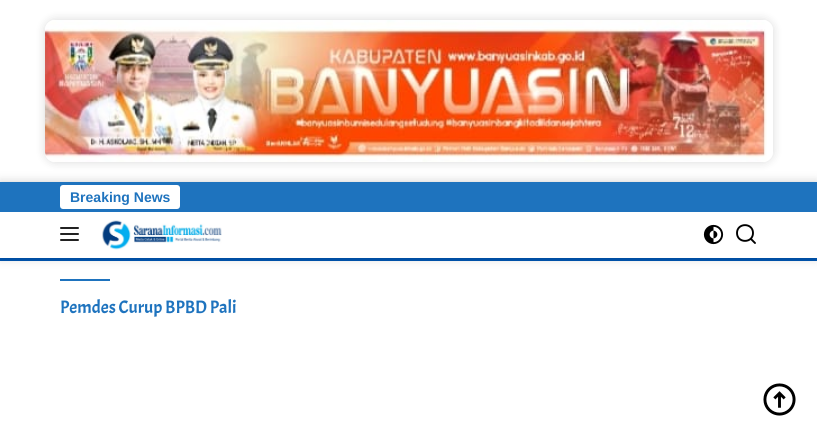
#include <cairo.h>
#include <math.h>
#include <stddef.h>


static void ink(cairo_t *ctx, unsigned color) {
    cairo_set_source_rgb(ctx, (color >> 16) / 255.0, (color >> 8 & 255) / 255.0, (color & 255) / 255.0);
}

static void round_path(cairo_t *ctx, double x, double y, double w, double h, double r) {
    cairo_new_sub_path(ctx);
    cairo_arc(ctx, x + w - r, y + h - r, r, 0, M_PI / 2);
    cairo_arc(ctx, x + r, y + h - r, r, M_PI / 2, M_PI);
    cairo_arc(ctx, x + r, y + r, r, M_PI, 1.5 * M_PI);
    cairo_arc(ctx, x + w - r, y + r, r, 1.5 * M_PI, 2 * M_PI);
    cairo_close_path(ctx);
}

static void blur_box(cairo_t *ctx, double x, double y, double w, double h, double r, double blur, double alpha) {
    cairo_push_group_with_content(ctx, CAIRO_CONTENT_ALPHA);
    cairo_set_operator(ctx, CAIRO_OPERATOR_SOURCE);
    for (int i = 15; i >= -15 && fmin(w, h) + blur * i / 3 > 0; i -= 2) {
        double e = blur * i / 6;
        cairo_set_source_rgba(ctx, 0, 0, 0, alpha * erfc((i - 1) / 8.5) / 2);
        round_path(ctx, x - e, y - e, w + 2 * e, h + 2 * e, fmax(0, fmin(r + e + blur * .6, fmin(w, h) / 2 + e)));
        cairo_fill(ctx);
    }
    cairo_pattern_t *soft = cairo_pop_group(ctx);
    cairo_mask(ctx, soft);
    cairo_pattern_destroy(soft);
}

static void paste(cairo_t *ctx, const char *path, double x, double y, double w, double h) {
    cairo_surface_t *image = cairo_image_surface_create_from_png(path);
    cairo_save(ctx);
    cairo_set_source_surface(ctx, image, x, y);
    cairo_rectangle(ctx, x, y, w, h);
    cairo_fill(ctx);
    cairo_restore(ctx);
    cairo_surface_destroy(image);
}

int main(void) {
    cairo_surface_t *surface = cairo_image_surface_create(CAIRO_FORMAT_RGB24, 817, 444);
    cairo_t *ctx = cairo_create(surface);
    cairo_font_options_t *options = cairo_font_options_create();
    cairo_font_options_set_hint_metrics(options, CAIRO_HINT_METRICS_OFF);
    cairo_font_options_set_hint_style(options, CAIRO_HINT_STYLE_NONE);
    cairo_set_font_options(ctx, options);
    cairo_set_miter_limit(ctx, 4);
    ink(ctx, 0xFFFFFF);
    cairo_paint(ctx);
    cairo_save(ctx);
    cairo_set_fill_rule(ctx, CAIRO_FILL_RULE_EVEN_ODD);
    cairo_new_path(ctx);
    cairo_move_to(ctx, 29, 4);
    cairo_line_to(ctx, 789, 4);
    cairo_line_to(ctx, 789, 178);
    cairo_line_to(ctx, 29, 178);
    cairo_close_path(ctx);
    cairo_move_to(ctx, 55, 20);
    cairo_line_to(ctx, 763, 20);
    cairo_curve_to(ctx, 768.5, 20, 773, 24.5, 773, 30);
    cairo_line_to(ctx, 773, 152);
    cairo_curve_to(ctx, 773, 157.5, 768.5, 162, 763, 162);
    cairo_line_to(ctx, 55, 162);
    cairo_curve_to(ctx, 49.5, 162, 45, 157.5, 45, 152);
    cairo_line_to(ctx, 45, 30);
    cairo_curve_to(ctx, 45, 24.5, 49.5, 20, 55, 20);
    cairo_close_path(ctx);
    cairo_clip(ctx);
    ink(ctx, 0x000000);
    blur_box(ctx, 45, 20, 728, 142, 10, 5, 0.15);
    cairo_restore(ctx);
    paste(ctx, "media/1.png", 45, 20, 722, 142);
    ink(ctx, 0x0056B3);
    cairo_rectangle(ctx, 0, 258, 817, 3);
    cairo_fill(ctx);
    cairo_save(ctx);
    cairo_set_fill_rule(ctx, CAIRO_FILL_RULE_EVEN_ODD);
    cairo_new_path(ctx);
    cairo_move_to(ctx, 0, 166);
    cairo_line_to(ctx, 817, 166);
    cairo_line_to(ctx, 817, 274);
    cairo_line_to(ctx, 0, 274);
    cairo_close_path(ctx);
    cairo_move_to(ctx, 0, 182);
    cairo_line_to(ctx, 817, 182);
    cairo_line_to(ctx, 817, 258);
    cairo_line_to(ctx, 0, 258);
    cairo_close_path(ctx);
    cairo_clip(ctx);
    ink(ctx, 0x000000);
    blur_box(ctx, 0, 182, 817, 76, 0, 5, 0.2);
    cairo_restore(ctx);
    ink(ctx, 0x1E73BE);
    cairo_rectangle(ctx, 0, 182, 817, 30);
    cairo_fill(ctx);
    ink(ctx, 0xFFFFFF);
    round_path(ctx, 60, 185, 120, 24, 3);
    cairo_fill(ctx);
    cairo_select_font_face(ctx, "Liberation Sans", CAIRO_FONT_SLANT_NORMAL, CAIRO_FONT_WEIGHT_BOLD);
    cairo_set_font_size(ctx, 14);
    ink(ctx, 0x1E73BE);
    cairo_move_to(ctx, 70, 202);
    cairo_show_text(ctx, "Breaking News");
    ink(ctx, 0x222222);
    round_path(ctx, 60, 227, 19, 2, 1);
    cairo_fill(ctx);
    round_path(ctx, 60, 233, 19, 2, 1);
    cairo_fill(ctx);
    round_path(ctx, 60, 239, 19, 2, 1);
    cairo_fill(ctx);
    paste(ctx, "media/2.png", 102, 220, 120, 30);
    paste(ctx, "media/3.png", 703, 224, 21, 21);
    cairo_new_path(ctx);
    cairo_move_to(ctx, 755, 243);
    cairo_line_to(ctx, 751, 239);
    cairo_move_to(ctx, 753, 233);
    cairo_curve_to(ctx, 753, 243.5, 737, 243.5, 737, 233);
    cairo_curve_to(ctx, 737, 222.5, 753, 222.5, 753, 233);
    cairo_close_path(ctx);
    ink(ctx, 0x000000);
    cairo_set_line_width(ctx, 1.9);
    cairo_set_line_cap(ctx, CAIRO_LINE_CAP_ROUND);
    cairo_stroke(ctx);
    ink(ctx, 0x1E73BE);
    cairo_rectangle(ctx, 60, 279, 50, 2);
    cairo_fill(ctx);
    cairo_select_font_face(ctx, "Acme", CAIRO_FONT_SLANT_NORMAL, CAIRO_FONT_WEIGHT_NORMAL);
    cairo_set_font_size(ctx, 18);
    cairo_move_to(ctx, 60, 313);
    cairo_show_text(ctx, "Pemdes Curup BPBD Pali");
    paste(ctx, "media/4.png", 763, 383, 33, 33);
    cairo_surface_write_to_png(surface, "image.png");
    cairo_font_options_destroy(options);
    cairo_destroy(ctx);
    cairo_surface_destroy(surface);
    return 0;
}
